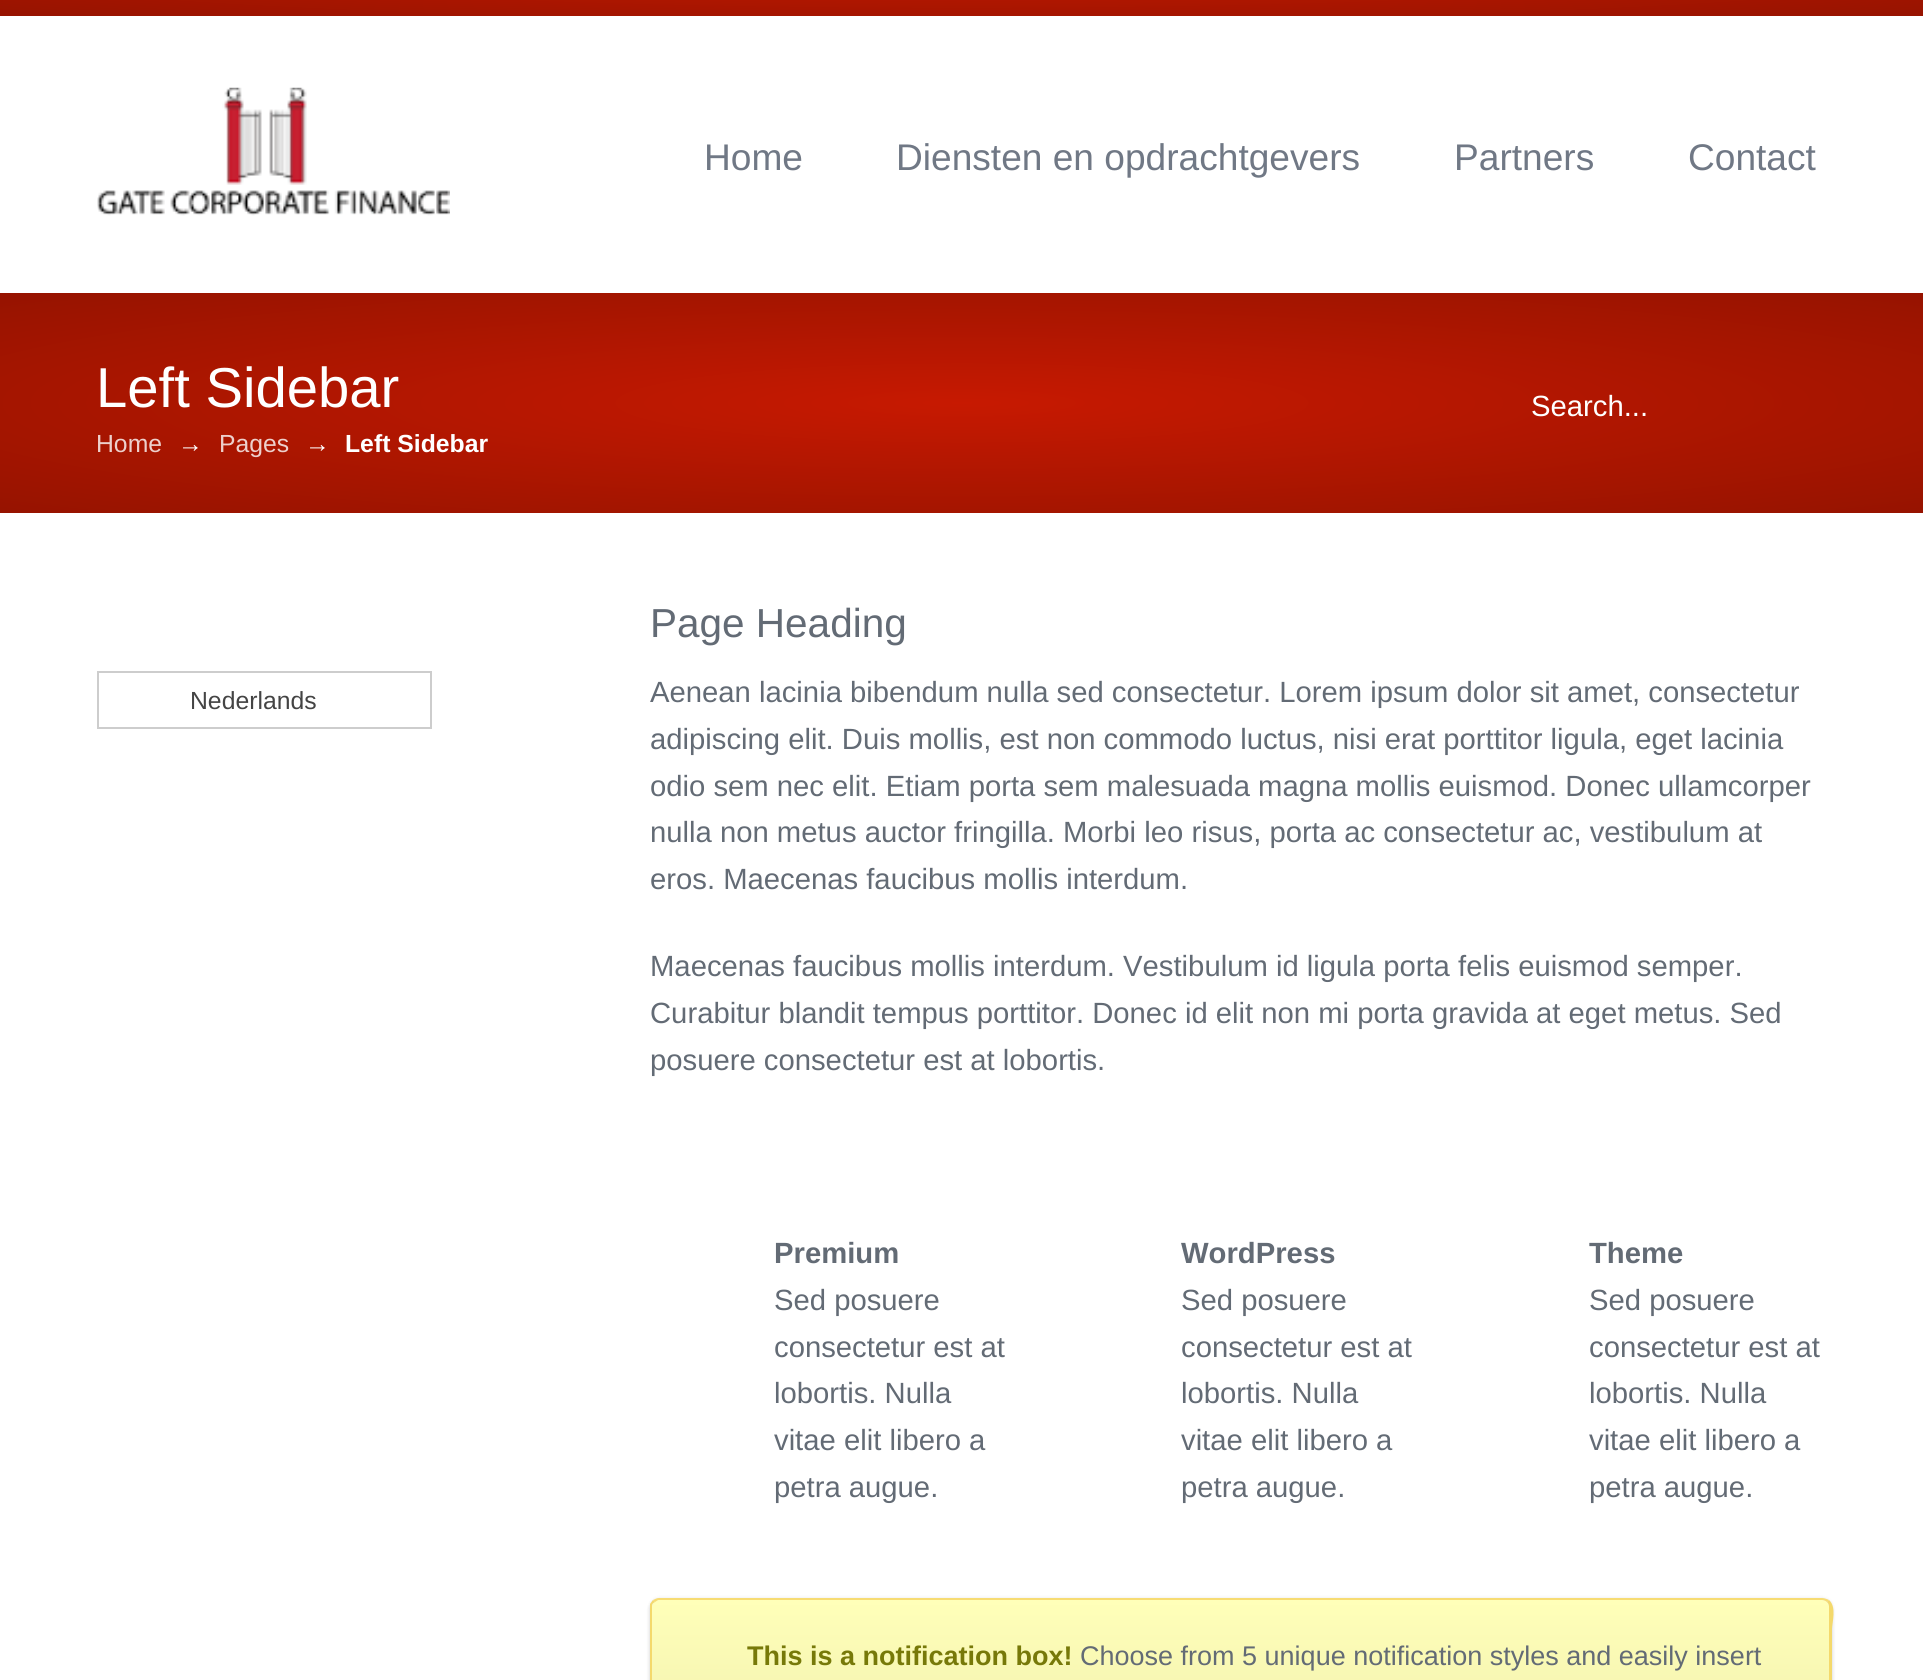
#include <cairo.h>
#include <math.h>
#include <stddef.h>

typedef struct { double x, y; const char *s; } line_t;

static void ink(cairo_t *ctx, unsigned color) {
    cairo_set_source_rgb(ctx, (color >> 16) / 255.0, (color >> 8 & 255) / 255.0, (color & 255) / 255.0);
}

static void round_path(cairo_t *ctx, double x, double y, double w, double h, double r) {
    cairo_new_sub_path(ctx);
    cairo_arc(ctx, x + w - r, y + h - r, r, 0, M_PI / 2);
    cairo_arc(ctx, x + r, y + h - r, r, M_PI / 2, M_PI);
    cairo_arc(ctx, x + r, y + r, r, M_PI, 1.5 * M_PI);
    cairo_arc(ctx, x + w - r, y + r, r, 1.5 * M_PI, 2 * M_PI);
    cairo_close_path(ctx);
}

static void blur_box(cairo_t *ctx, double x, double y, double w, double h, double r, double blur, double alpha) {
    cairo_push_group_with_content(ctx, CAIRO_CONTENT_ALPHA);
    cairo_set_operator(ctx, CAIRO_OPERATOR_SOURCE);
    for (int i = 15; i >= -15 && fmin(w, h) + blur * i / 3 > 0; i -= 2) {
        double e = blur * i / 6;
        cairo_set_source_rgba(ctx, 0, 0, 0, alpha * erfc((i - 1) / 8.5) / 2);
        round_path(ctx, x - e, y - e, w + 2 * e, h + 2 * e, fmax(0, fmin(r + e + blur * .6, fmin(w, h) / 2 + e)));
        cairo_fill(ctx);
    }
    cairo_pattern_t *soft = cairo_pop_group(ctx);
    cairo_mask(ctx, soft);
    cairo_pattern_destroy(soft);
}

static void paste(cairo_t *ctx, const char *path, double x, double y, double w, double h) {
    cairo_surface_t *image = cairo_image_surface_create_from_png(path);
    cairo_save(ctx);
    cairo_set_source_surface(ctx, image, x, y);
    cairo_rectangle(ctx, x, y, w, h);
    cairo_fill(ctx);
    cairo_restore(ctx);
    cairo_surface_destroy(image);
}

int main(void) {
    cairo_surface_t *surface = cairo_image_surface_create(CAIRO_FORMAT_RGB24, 1923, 1680);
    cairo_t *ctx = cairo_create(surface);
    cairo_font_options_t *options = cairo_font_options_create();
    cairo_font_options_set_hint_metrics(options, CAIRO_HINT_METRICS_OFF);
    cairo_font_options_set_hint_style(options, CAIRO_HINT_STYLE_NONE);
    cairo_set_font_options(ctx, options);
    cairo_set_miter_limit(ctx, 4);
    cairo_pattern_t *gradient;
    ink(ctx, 0xFFFFFF);
    cairo_paint(ctx);
    gradient = cairo_pattern_create_radial(0, 0, 0, 0, 0, 1);
    cairo_pattern_set_matrix(gradient, &(cairo_matrix_t){1.0 / 1360, 0, 0, 1.0 / 80, -1.0 * 962 / 1360, -1.0 * -40 / 80});
    cairo_pattern_add_color_stop_rgba(gradient, 0, 0.78, 0.098, 0.004, 1);
    cairo_pattern_add_color_stop_rgba(gradient, 1, 0.588, 0.075, 0, 1);
    cairo_set_source(ctx, gradient);
    cairo_pattern_destroy(gradient);
    cairo_rectangle(ctx, 0, 0, 1923, 16);
    cairo_fill(ctx);
    paste(ctx, "media/1.png", 97, 87, 353, 129);
    cairo_select_font_face(ctx, "Liberation Sans", CAIRO_FONT_SLANT_NORMAL, CAIRO_FONT_WEIGHT_NORMAL);
    cairo_set_font_size(ctx, 37.1);
    ink(ctx, 0x707885);
    {
        static const line_t items[] = {
            {704, 170, "Home"},
            {896, 170, "Diensten en opdrachtgevers"},
            {1454, 170, "Partners"},
            {1688, 170, "Contact"},
        };
        for (size_t i = 0; i < sizeof items / sizeof *items; i++) {
            cairo_move_to(ctx, items[i].x, items[i].y);
            cairo_show_text(ctx, items[i].s);
        }
    }
    gradient = cairo_pattern_create_radial(0, 0, 0, 0, 0, 1);
    cairo_pattern_set_matrix(gradient, &(cairo_matrix_t){1.0 / 1360, 0, 0, 1.0 / 156, -1.0 * 962 / 1360, -1.0 * 403 / 156});
    cairo_pattern_add_color_stop_rgba(gradient, 0, 0.78, 0.098, 0.004, 1);
    cairo_pattern_add_color_stop_rgba(gradient, 1, 0.588, 0.075, 0, 1);
    cairo_set_source(ctx, gradient);
    cairo_pattern_destroy(gradient);
    cairo_rectangle(ctx, 0, 293, 1923, 220);
    cairo_fill(ctx);
    cairo_set_font_size(ctx, 56.25);
    ink(ctx, 0xFFFFFF);
    cairo_move_to(ctx, 96, 407);
    cairo_show_text(ctx, "Left Sidebar");
    cairo_set_font_size(ctx, 29.25);
    cairo_move_to(ctx, 1531, 416);
    cairo_show_text(ctx, "Search...");
    cairo_set_font_size(ctx, 24.75);
    ink(ctx, 0xEDD0CC);
    cairo_move_to(ctx, 96, 452);
    cairo_show_text(ctx, "Home");
    ink(ctx, 0xFFFFFF);
    cairo_move_to(ctx, 178, 452);
    cairo_show_text(ctx, "→");
    ink(ctx, 0xEDD0CC);
    cairo_move_to(ctx, 219, 452);
    cairo_show_text(ctx, "Pages");
    ink(ctx, 0xFFFFFF);
    cairo_move_to(ctx, 305, 452);
    cairo_show_text(ctx, "→");
    cairo_select_font_face(ctx, "Liberation Sans", CAIRO_FONT_SLANT_NORMAL, CAIRO_FONT_WEIGHT_BOLD);
    cairo_move_to(ctx, 345, 452);
    cairo_show_text(ctx, "Left Sidebar");
    cairo_rectangle(ctx, 98, 672, 333, 56);
    ink(ctx, 0xCDCDCD);
    cairo_stroke(ctx);
    cairo_select_font_face(ctx, "Liberation Sans", CAIRO_FONT_SLANT_NORMAL, CAIRO_FONT_WEIGHT_NORMAL);
    ink(ctx, 0x444444);
    cairo_move_to(ctx, 190, 709);
    cairo_show_text(ctx, "Nederlands");
    cairo_set_font_size(ctx, 40.5);
    ink(ctx, 0x636B75);
    cairo_move_to(ctx, 650, 637);
    cairo_show_text(ctx, "Page Heading");
    cairo_set_font_size(ctx, 29.25);
    {
        static const line_t items[] = {
            {650, 702, "Aenean lacinia bibendum nulla sed consectetur. Lorem ipsum dolor sit amet, consectetur"},
            {650, 749, "adipiscing elit. Duis mollis, est non commodo luctus, nisi erat porttitor ligula, eget lacinia"},
            {650, 796, "odio sem nec elit. Etiam porta sem malesuada magna mollis euismod. Donec ullamcorper"},
            {650, 842, "nulla non metus auctor fringilla. Morbi leo risus, porta ac consectetur ac, vestibulum at"},
            {650, 889, "eros. Maecenas faucibus mollis interdum."},
            {650, 976, "Maecenas faucibus mollis interdum. Vestibulum id ligula porta felis euismod semper."},
            {650, 1023, "Curabitur blandit tempus porttitor. Donec id elit non mi porta gravida at eget metus. Sed"},
            {650, 1070, "posuere consectetur est at lobortis."},
        };
        for (size_t i = 0; i < sizeof items / sizeof *items; i++) {
            cairo_move_to(ctx, items[i].x, items[i].y);
            cairo_show_text(ctx, items[i].s);
        }
    }
    cairo_select_font_face(ctx, "Liberation Sans", CAIRO_FONT_SLANT_NORMAL, CAIRO_FONT_WEIGHT_BOLD);
    cairo_move_to(ctx, 774, 1263);
    cairo_show_text(ctx, "Premium");
    cairo_select_font_face(ctx, "Liberation Sans", CAIRO_FONT_SLANT_NORMAL, CAIRO_FONT_WEIGHT_NORMAL);
    {
        static const line_t items[] = {
            {774, 1310, "Sed posuere"},
            {774, 1357, "consectetur est at"},
            {774, 1403, "lobortis. Nulla"},
            {774, 1450, "vitae elit libero a"},
            {774, 1497, "petra augue."},
        };
        for (size_t i = 0; i < sizeof items / sizeof *items; i++) {
            cairo_move_to(ctx, items[i].x, items[i].y);
            cairo_show_text(ctx, items[i].s);
        }
    }
    cairo_select_font_face(ctx, "Liberation Sans", CAIRO_FONT_SLANT_NORMAL, CAIRO_FONT_WEIGHT_BOLD);
    cairo_move_to(ctx, 1181, 1263);
    cairo_show_text(ctx, "WordPress");
    cairo_select_font_face(ctx, "Liberation Sans", CAIRO_FONT_SLANT_NORMAL, CAIRO_FONT_WEIGHT_NORMAL);
    {
        static const line_t items[] = {
            {1181, 1310, "Sed posuere"},
            {1181, 1357, "consectetur est at"},
            {1181, 1403, "lobortis. Nulla"},
            {1181, 1450, "vitae elit libero a"},
            {1181, 1497, "petra augue."},
        };
        for (size_t i = 0; i < sizeof items / sizeof *items; i++) {
            cairo_move_to(ctx, items[i].x, items[i].y);
            cairo_show_text(ctx, items[i].s);
        }
    }
    cairo_select_font_face(ctx, "Liberation Sans", CAIRO_FONT_SLANT_NORMAL, CAIRO_FONT_WEIGHT_BOLD);
    cairo_move_to(ctx, 1589, 1263);
    cairo_show_text(ctx, "Theme");
    cairo_select_font_face(ctx, "Liberation Sans", CAIRO_FONT_SLANT_NORMAL, CAIRO_FONT_WEIGHT_NORMAL);
    {
        static const line_t items[] = {
            {1589, 1310, "Sed posuere"},
            {1589, 1357, "consectetur est at"},
            {1589, 1403, "lobortis. Nulla"},
            {1589, 1450, "vitae elit libero a"},
            {1589, 1497, "petra augue."},
        };
        for (size_t i = 0; i < sizeof items / sizeof *items; i++) {
            cairo_move_to(ctx, items[i].x, items[i].y);
            cairo_show_text(ctx, items[i].s);
        }
    }
    ink(ctx, 0x000000);
    blur_box(ctx, 650, 1598, 1182, 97, 9, 2, 0.05);
    blur_box(ctx, 650, 1600, 1182, 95, 9, 2, 0.15);
    gradient = cairo_pattern_create_linear(1241, 1600, 1241, 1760);
    cairo_pattern_add_color_stop_rgba(gradient, 0, 1, 1, 0.725, 1);
    cairo_pattern_add_color_stop_rgba(gradient, 1, 0.941, 0.937, 0.682, 1);
    cairo_set_source(ctx, gradient);
    cairo_pattern_destroy(gradient);
    cairo_new_path(ctx);
    cairo_move_to(ctx, 659, 1600);
    cairo_line_to(ctx, 1822, 1600);
    cairo_curve_to(ctx, 1826, 1600, 1829, 1603, 1829, 1606);
    cairo_line_to(ctx, 1829, 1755);
    cairo_curve_to(ctx, 1829, 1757, 1826, 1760, 1822, 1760);
    cairo_line_to(ctx, 659, 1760);
    cairo_curve_to(ctx, 656, 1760, 652, 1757, 652, 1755);
    cairo_line_to(ctx, 652, 1606);
    cairo_curve_to(ctx, 652, 1603, 656, 1600, 659, 1600);
    cairo_close_path(ctx);
    cairo_fill(ctx);
    ink(ctx, 0xF7DC72);
    cairo_new_path(ctx);
    cairo_move_to(ctx, 659, 1598);
    cairo_curve_to(ctx, 657, 1598, 655, 1599, 653, 1600);
    cairo_line_to(ctx, 655, 1602);
    cairo_line_to(ctx, 658, 1600);
    cairo_line_to(ctx, 1822, 1600);
    cairo_curve_to(ctx, 1824, 1600, 1826, 1601, 1827, 1602);
    cairo_line_to(ctx, 1829, 1600);
    cairo_curve_to(ctx, 1827, 1599, 1824, 1598, 1822, 1598);
    cairo_close_path(ctx);
    cairo_fill(ctx);
    ink(ctx, 0xF4D96C);
    cairo_new_path(ctx);
    cairo_move_to(ctx, 1829, 1600);
    cairo_curve_to(ctx, 1837, 1607, 1832, 1623, 1832, 1629);
    cairo_line_to(ctx, 1832, 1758);
    cairo_line_to(ctx, 1830, 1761);
    cairo_line_to(ctx, 1828, 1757);
    cairo_line_to(ctx, 1829, 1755);
    cairo_line_to(ctx, 1829, 1606);
    cairo_curve_to(ctx, 1829, 1604, 1828, 1603, 1827, 1602);
    cairo_close_path(ctx);
    cairo_fill(ctx);
    cairo_new_path(ctx);
    cairo_move_to(ctx, 650, 1604);
    cairo_curve_to(ctx, 651, 1603, 652, 1601, 653, 1600);
    cairo_line_to(ctx, 655, 1602);
    cairo_curve_to(ctx, 653, 1603, 652, 1604, 652, 1605);
    cairo_line_to(ctx, 652, 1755);
    cairo_line_to(ctx, 653, 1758);
    cairo_line_to(ctx, 652, 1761);
    cairo_line_to(ctx, 650, 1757);
    cairo_close_path(ctx);
    cairo_fill(ctx);
    cairo_select_font_face(ctx, "Liberation Sans", CAIRO_FONT_SLANT_NORMAL, CAIRO_FONT_WEIGHT_BOLD);
    cairo_set_font_size(ctx, 27);
    ink(ctx, 0x777909);
    cairo_move_to(ctx, 747, 1665);
    cairo_show_text(ctx, "This is a notification box!");
    cairo_select_font_face(ctx, "Liberation Sans", CAIRO_FONT_SLANT_NORMAL, CAIRO_FONT_WEIGHT_NORMAL);
    ink(ctx, 0x636B75);
    cairo_move_to(ctx, 1080, 1665);
    cairo_show_text(ctx, "Choose from 5 unique notification styles and easily insert");
    cairo_surface_write_to_png(surface, "image.png");
    cairo_font_options_destroy(options);
    cairo_destroy(ctx);
    cairo_surface_destroy(surface);
    return 0;
}
